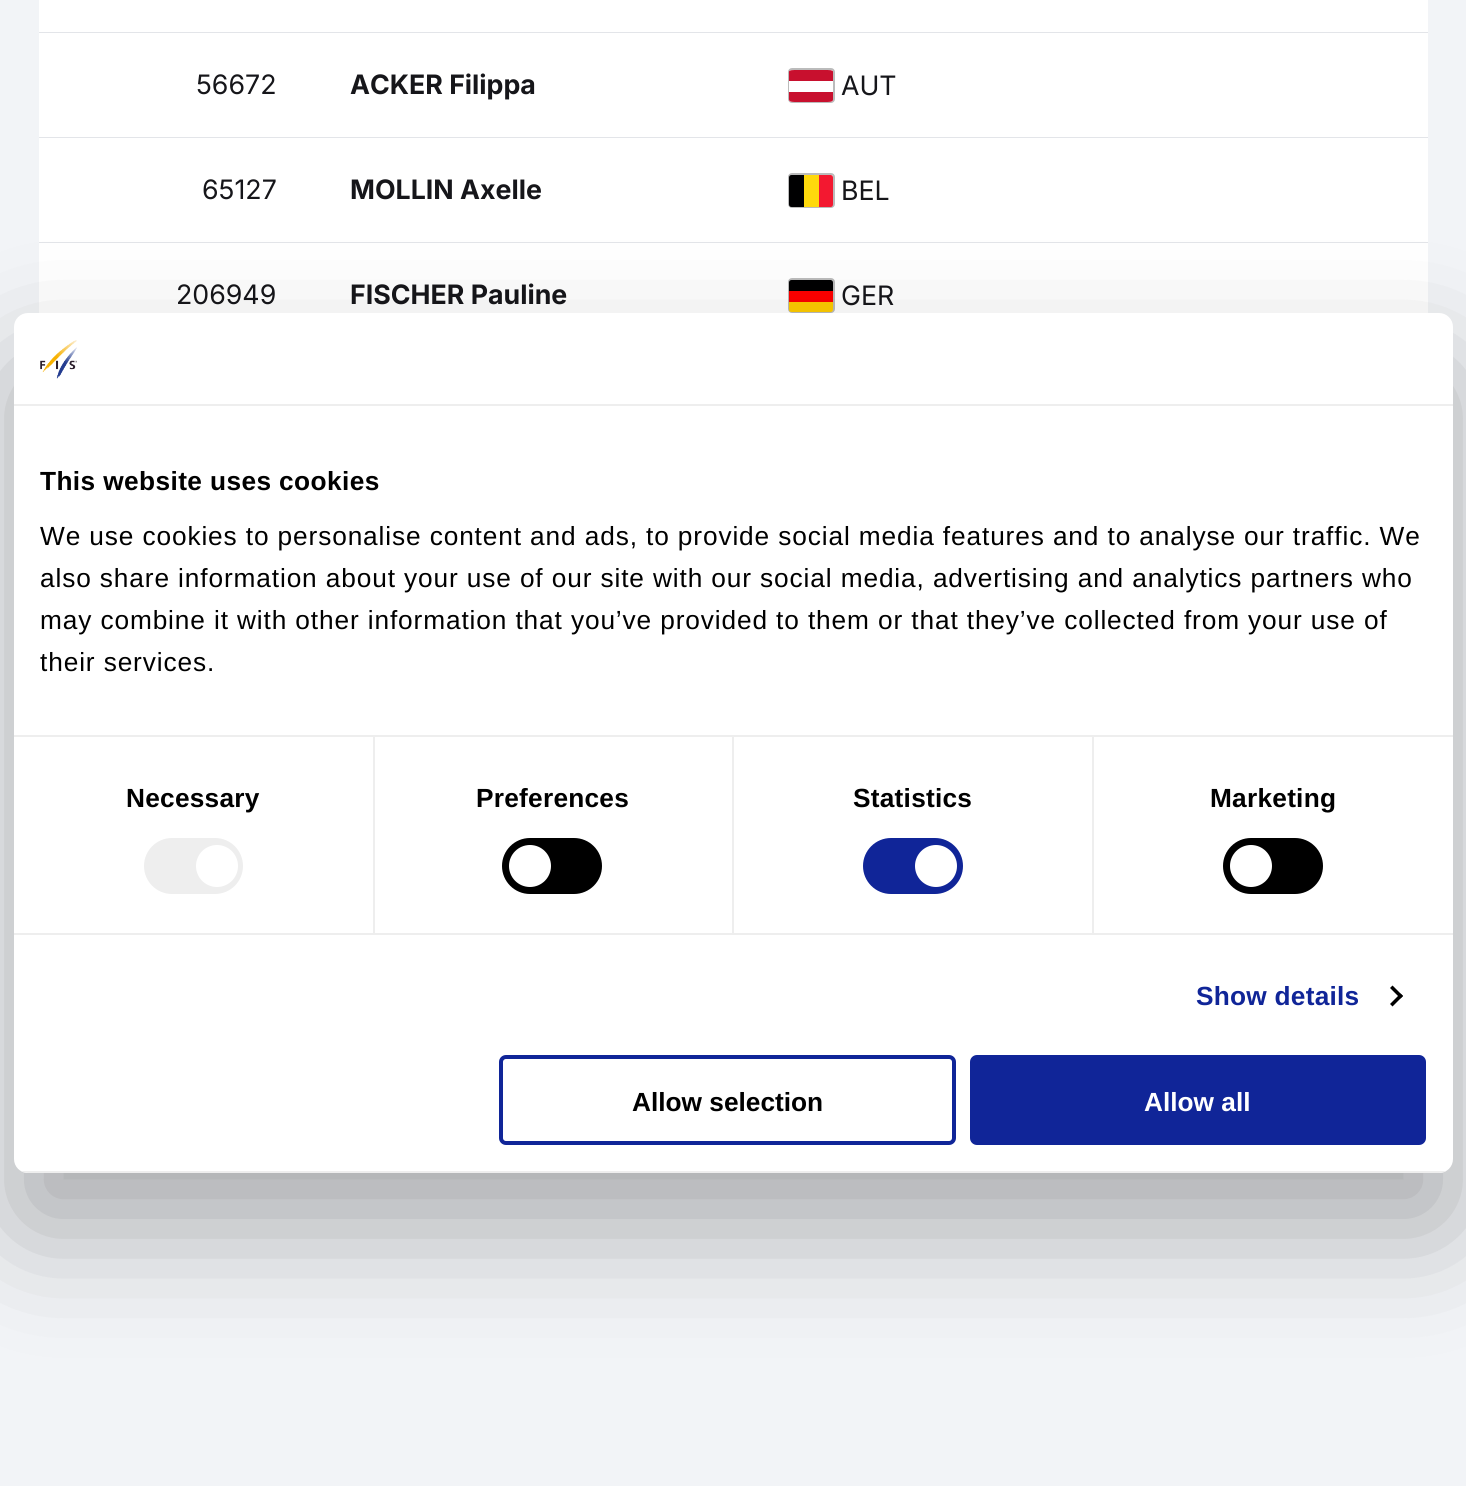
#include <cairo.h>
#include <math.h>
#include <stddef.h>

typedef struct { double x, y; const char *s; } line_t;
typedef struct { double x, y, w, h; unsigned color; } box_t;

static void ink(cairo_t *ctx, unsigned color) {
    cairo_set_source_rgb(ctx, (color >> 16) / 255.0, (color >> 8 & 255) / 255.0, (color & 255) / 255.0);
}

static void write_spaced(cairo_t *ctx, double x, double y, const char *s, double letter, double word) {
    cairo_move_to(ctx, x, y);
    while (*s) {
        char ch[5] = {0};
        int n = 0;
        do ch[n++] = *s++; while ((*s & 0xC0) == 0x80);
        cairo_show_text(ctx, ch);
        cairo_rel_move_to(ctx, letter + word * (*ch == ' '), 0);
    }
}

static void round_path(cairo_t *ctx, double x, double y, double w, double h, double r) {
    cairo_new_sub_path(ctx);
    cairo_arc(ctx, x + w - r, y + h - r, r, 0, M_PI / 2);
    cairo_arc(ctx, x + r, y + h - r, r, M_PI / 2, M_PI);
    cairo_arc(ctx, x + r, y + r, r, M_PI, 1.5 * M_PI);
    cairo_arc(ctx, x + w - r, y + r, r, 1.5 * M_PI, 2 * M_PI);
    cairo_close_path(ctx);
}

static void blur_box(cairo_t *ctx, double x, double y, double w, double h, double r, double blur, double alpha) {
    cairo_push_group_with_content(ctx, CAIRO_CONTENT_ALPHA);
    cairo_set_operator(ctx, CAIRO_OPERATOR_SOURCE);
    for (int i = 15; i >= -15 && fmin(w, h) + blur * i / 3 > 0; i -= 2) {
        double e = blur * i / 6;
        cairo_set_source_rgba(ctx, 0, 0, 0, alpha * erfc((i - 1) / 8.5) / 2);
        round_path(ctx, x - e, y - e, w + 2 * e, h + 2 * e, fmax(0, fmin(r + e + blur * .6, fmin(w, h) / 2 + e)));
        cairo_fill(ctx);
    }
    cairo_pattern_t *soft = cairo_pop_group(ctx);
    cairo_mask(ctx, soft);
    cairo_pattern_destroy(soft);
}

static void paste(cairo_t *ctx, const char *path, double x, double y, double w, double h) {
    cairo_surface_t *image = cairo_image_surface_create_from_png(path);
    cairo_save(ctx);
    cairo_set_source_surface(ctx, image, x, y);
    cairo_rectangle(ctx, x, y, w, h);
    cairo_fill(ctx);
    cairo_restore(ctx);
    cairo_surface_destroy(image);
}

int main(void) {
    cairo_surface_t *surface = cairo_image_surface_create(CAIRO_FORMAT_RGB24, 1466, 1486);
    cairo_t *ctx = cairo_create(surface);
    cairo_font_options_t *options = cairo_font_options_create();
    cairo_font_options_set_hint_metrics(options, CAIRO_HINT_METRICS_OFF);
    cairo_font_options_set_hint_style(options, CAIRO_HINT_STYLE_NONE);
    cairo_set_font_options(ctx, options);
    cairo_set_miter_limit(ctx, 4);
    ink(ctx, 0xF2F4F7);
    cairo_paint(ctx);
    {
        static const box_t items[] = {
            {39, 0, 1389, 32, 0xFFFFFF},
            {39, 32, 1389, 1, 0xE3E5E9},
            {39, 33, 1389, 104, 0xFFFFFF},
            {39, 137, 1389, 1, 0xE3E5E9},
        };
        for (size_t i = 0; i < sizeof items / sizeof *items; i++) {
            ink(ctx, items[i].color);
            cairo_rectangle(ctx, items[i].x, items[i].y, items[i].w, items[i].h);
            cairo_fill(ctx);
        }
    }
    cairo_select_font_face(ctx, "Inter", CAIRO_FONT_SLANT_NORMAL, CAIRO_FONT_WEIGHT_NORMAL);
    cairo_set_font_size(ctx, 26.75);
    ink(ctx, 0x16161A);
    cairo_move_to(ctx, 196, 94);
    cairo_show_text(ctx, "56672");
    cairo_select_font_face(ctx, "Inter", CAIRO_FONT_SLANT_NORMAL, CAIRO_FONT_WEIGHT_BOLD);
    cairo_move_to(ctx, 350, 94);
    cairo_show_text(ctx, "ACKER Filippa");
    round_path(ctx, 789, 69, 45, 33, 3);
    ink(ctx, 0xBBBBBB);
    cairo_stroke(ctx);
    ink(ctx, 0xFFFFFF);
    round_path(ctx, 789, 70, 44, 32, 2.5);
    cairo_fill(ctx);
    cairo_save(ctx);
    cairo_rectangle(ctx, 789, 70, 44, 32);
    cairo_clip(ctx);
    ink(ctx, 0xC8102E);
    cairo_set_fill_rule(ctx, CAIRO_FILL_RULE_EVEN_ODD);
    cairo_new_path(ctx);
    cairo_move_to(ctx, 833, 81);
    cairo_curve_to(ctx, 833, 70, 836, 70, 824, 70);
    cairo_line_to(ctx, 798, 70);
    cairo_curve_to(ctx, 786, 70, 789, 70, 789, 81);
    cairo_close_path(ctx);
    cairo_move_to(ctx, 789, 92);
    cairo_curve_to(ctx, 789, 102, 787, 102, 798, 102);
    cairo_line_to(ctx, 824, 102);
    cairo_curve_to(ctx, 835, 102, 833, 102, 833, 92);
    cairo_close_path(ctx);
    cairo_fill(ctx);
    cairo_restore(ctx);
    cairo_select_font_face(ctx, "Inter", CAIRO_FONT_SLANT_NORMAL, CAIRO_FONT_WEIGHT_NORMAL);
    ink(ctx, 0x16161A);
    cairo_move_to(ctx, 841, 95);
    cairo_show_text(ctx, "AUT");
    ink(ctx, 0xFFFFFF);
    cairo_rectangle(ctx, 39, 138, 1389, 104);
    cairo_fill(ctx);
    ink(ctx, 0xE3E5E9);
    cairo_rectangle(ctx, 39, 242, 1389, 1);
    cairo_fill(ctx);
    ink(ctx, 0x16161A);
    cairo_move_to(ctx, 202, 199);
    cairo_show_text(ctx, "65127");
    cairo_select_font_face(ctx, "Inter", CAIRO_FONT_SLANT_NORMAL, CAIRO_FONT_WEIGHT_BOLD);
    cairo_move_to(ctx, 350, 199);
    cairo_show_text(ctx, "MOLLIN Axelle");
    round_path(ctx, 789, 174, 45, 33, 3);
    ink(ctx, 0xBBBBBB);
    cairo_stroke(ctx);
    ink(ctx, 0x000001);
    cairo_new_path(ctx);
    cairo_move_to(ctx, 791.5, 175);
    cairo_line_to(ctx, 804, 175);
    cairo_line_to(ctx, 804, 207);
    cairo_line_to(ctx, 791.5, 207);
    cairo_curve_to(ctx, 790, 207, 789, 206, 789, 204.5);
    cairo_line_to(ctx, 789, 177.5);
    cairo_curve_to(ctx, 789, 176, 790, 175, 791.5, 175);
    cairo_close_path(ctx);
    cairo_fill(ctx);
    ink(ctx, 0xFFD90C);
    cairo_rectangle(ctx, 804, 175, 15, 32);
    cairo_fill(ctx);
    ink(ctx, 0xF31830);
    cairo_new_path(ctx);
    cairo_move_to(ctx, 819, 175);
    cairo_line_to(ctx, 830.5, 175);
    cairo_curve_to(ctx, 832, 175, 833, 176, 833, 177.5);
    cairo_line_to(ctx, 833, 204.5);
    cairo_curve_to(ctx, 833, 206, 832, 207, 830.5, 207);
    cairo_line_to(ctx, 819, 207);
    cairo_close_path(ctx);
    cairo_fill(ctx);
    cairo_select_font_face(ctx, "Inter", CAIRO_FONT_SLANT_NORMAL, CAIRO_FONT_WEIGHT_NORMAL);
    ink(ctx, 0x16161A);
    cairo_move_to(ctx, 841, 200);
    cairo_show_text(ctx, "BEL");
    ink(ctx, 0xFFFFFF);
    cairo_rectangle(ctx, 39, 243, 1389, 70);
    cairo_fill(ctx);
    ink(ctx, 0x16161A);
    cairo_move_to(ctx, 176, 304);
    cairo_show_text(ctx, "206949");
    cairo_select_font_face(ctx, "Inter", CAIRO_FONT_SLANT_NORMAL, CAIRO_FONT_WEIGHT_BOLD);
    cairo_move_to(ctx, 350, 304);
    cairo_show_text(ctx, "FISCHER Pauline");
    round_path(ctx, 789, 279, 45, 33, 3);
    ink(ctx, 0xBBBBBB);
    cairo_stroke(ctx);
    ink(ctx, 0xFFCC00);
    cairo_new_path(ctx);
    cairo_move_to(ctx, 789, 302);
    cairo_line_to(ctx, 833, 302);
    cairo_line_to(ctx, 833, 309.5);
    cairo_curve_to(ctx, 833, 311, 832, 312, 830.5, 312);
    cairo_line_to(ctx, 791.5, 312);
    cairo_curve_to(ctx, 790, 312, 789, 311, 789, 309.5);
    cairo_close_path(ctx);
    cairo_fill(ctx);
    ink(ctx, 0x000001);
    cairo_new_path(ctx);
    cairo_move_to(ctx, 791.5, 280);
    cairo_line_to(ctx, 830.5, 280);
    cairo_curve_to(ctx, 832, 280, 833, 281, 833, 282.5);
    cairo_line_to(ctx, 833, 291);
    cairo_line_to(ctx, 789, 291);
    cairo_line_to(ctx, 789, 282.5);
    cairo_curve_to(ctx, 789, 281, 790, 280, 791.5, 280);
    cairo_close_path(ctx);
    cairo_fill(ctx);
    ink(ctx, 0xFF0000);
    cairo_rectangle(ctx, 789, 291, 44, 11);
    cairo_fill(ctx);
    cairo_select_font_face(ctx, "Inter", CAIRO_FONT_SLANT_NORMAL, CAIRO_FONT_WEIGHT_NORMAL);
    ink(ctx, 0x16161A);
    cairo_move_to(ctx, 841, 305);
    cairo_show_text(ctx, "GER");
    ink(ctx, 0x000000);
    blur_box(ctx, 14, 369, 1439, 860, 14, 59.5, 0.3);
    ink(ctx, 0xFFFFFF);
    round_path(ctx, 14, 313, 1439, 860, 14);
    cairo_fill(ctx);
    ink(ctx, 0xEEEEEE);
    cairo_rectangle(ctx, 14, 404, 1439, 2);
    cairo_fill(ctx);
    paste(ctx, "media/1.png", 40, 340, 37, 39);
    cairo_rectangle(ctx, 14, 735, 1439, 2);
    cairo_fill(ctx);
    cairo_select_font_face(ctx, "Liberation Sans", CAIRO_FONT_SLANT_NORMAL, CAIRO_FONT_WEIGHT_BOLD);
    cairo_set_font_size(ctx, 26.25);
    ink(ctx, 0x000000);
    write_spaced(ctx, 40, 490, "This website uses cookies", 0.4, 0);
    cairo_select_font_face(ctx, "Liberation Sans", CAIRO_FONT_SLANT_NORMAL, CAIRO_FONT_WEIGHT_NORMAL);
    {
        static const line_t items[] = {
            {40, 545, "We use cookies to personalise content and ads, to provide social media features and to analyse our traffic. We"},
            {40, 587, "also share information about your use of our site with our social media, advertising and analytics partners who"},
            {40, 629, "may combine it with other information that you’ve provided to them or that they’ve collected from your use of"},
            {40, 671, "their services."},
        };
        for (size_t i = 0; i < sizeof items / sizeof *items; i++) {
            write_spaced(ctx, items[i].x, items[i].y, items[i].s, 0.88, 0);
        }
    }
    ink(ctx, 0xEEEEEE);
    cairo_rectangle(ctx, 14, 933, 1439, 2);
    cairo_fill(ctx);
    cairo_rectangle(ctx, 373, 737, 2, 196);
    cairo_fill(ctx);
    cairo_select_font_face(ctx, "Liberation Sans", CAIRO_FONT_SLANT_NORMAL, CAIRO_FONT_WEIGHT_BOLD);
    ink(ctx, 0x000000);
    write_spaced(ctx, 126, 807, "Necessary", 0.25, 0);
    ink(ctx, 0xEEEEEE);
    round_path(ctx, 144, 838, 99, 56, 28);
    cairo_fill(ctx);
    ink(ctx, 0xFFFFFF);
    cairo_arc(ctx, 217, 866, 21, 0, 2 * M_PI);
    cairo_fill(ctx);
    ink(ctx, 0xEEEEEE);
    cairo_rectangle(ctx, 732, 737, 2, 196);
    cairo_fill(ctx);
    ink(ctx, 0x000000);
    write_spaced(ctx, 476, 807, "Preferences", 0.25, 0);
    round_path(ctx, 502, 838, 100, 56, 28);
    cairo_fill(ctx);
    ink(ctx, 0xFFFFFF);
    cairo_arc(ctx, 530, 866, 21, 0, 2 * M_PI);
    cairo_fill(ctx);
    ink(ctx, 0xEEEEEE);
    cairo_rectangle(ctx, 1092, 737, 2, 196);
    cairo_fill(ctx);
    ink(ctx, 0x000000);
    write_spaced(ctx, 853, 807, "Statistics", 0.25, 0);
    ink(ctx, 0x102598);
    round_path(ctx, 863, 838, 100, 56, 28);
    cairo_fill(ctx);
    ink(ctx, 0xFFFFFF);
    cairo_arc(ctx, 936, 866, 21, 0, 2 * M_PI);
    cairo_fill(ctx);
    ink(ctx, 0x000000);
    write_spaced(ctx, 1210, 807, "Marketing", 0.25, 0);
    round_path(ctx, 1223, 838, 100, 56, 28);
    cairo_fill(ctx);
    ink(ctx, 0xFFFFFF);
    cairo_arc(ctx, 1251, 866, 21, 0, 2 * M_PI);
    cairo_fill(ctx);
    ink(ctx, 0x102598);
    write_spaced(ctx, 1196, 1005, "Show details", 0.25, 0);
    ink(ctx, 0x000000);
    cairo_new_path(ctx);
    cairo_move_to(ctx, 1392.5, 985.5);
    cairo_line_to(ctx, 1403, 996);
    cairo_line_to(ctx, 1400.5, 998.5);
    cairo_line_to(ctx, 1390, 988);
    cairo_close_path(ctx);
    cairo_fill(ctx);
    cairo_new_path(ctx);
    cairo_move_to(ctx, 1400.5, 993.5);
    cairo_line_to(ctx, 1403, 996);
    cairo_line_to(ctx, 1392.5, 1006.5);
    cairo_line_to(ctx, 1390, 1004);
    cairo_close_path(ctx);
    cairo_fill(ctx);
    cairo_save(ctx);
    round_path(ctx, 14, 313, 1439, 860, 14);
    cairo_clip(ctx);
    ink(ctx, 0xEEEEEE);
    cairo_rectangle(ctx, 14, 1171, 1439, 2);
    cairo_fill(ctx);
    cairo_restore(ctx);
    round_path(ctx, 501, 1057, 453, 86, 5);
    ink(ctx, 0x102598);
    cairo_set_line_width(ctx, 4);
    cairo_stroke(ctx);
    ink(ctx, 0x000000);
    cairo_move_to(ctx, 632, 1111);
    cairo_show_text(ctx, "Allow selection");
    ink(ctx, 0x102598);
    round_path(ctx, 972, 1057, 452, 86, 5);
    cairo_fill_preserve(ctx);
    cairo_stroke(ctx);
    ink(ctx, 0xFFFFFF);
    cairo_move_to(ctx, 1144, 1111);
    cairo_show_text(ctx, "Allow all");
    cairo_surface_write_to_png(surface, "image.png");
    cairo_font_options_destroy(options);
    cairo_destroy(ctx);
    cairo_surface_destroy(surface);
    return 0;
}
